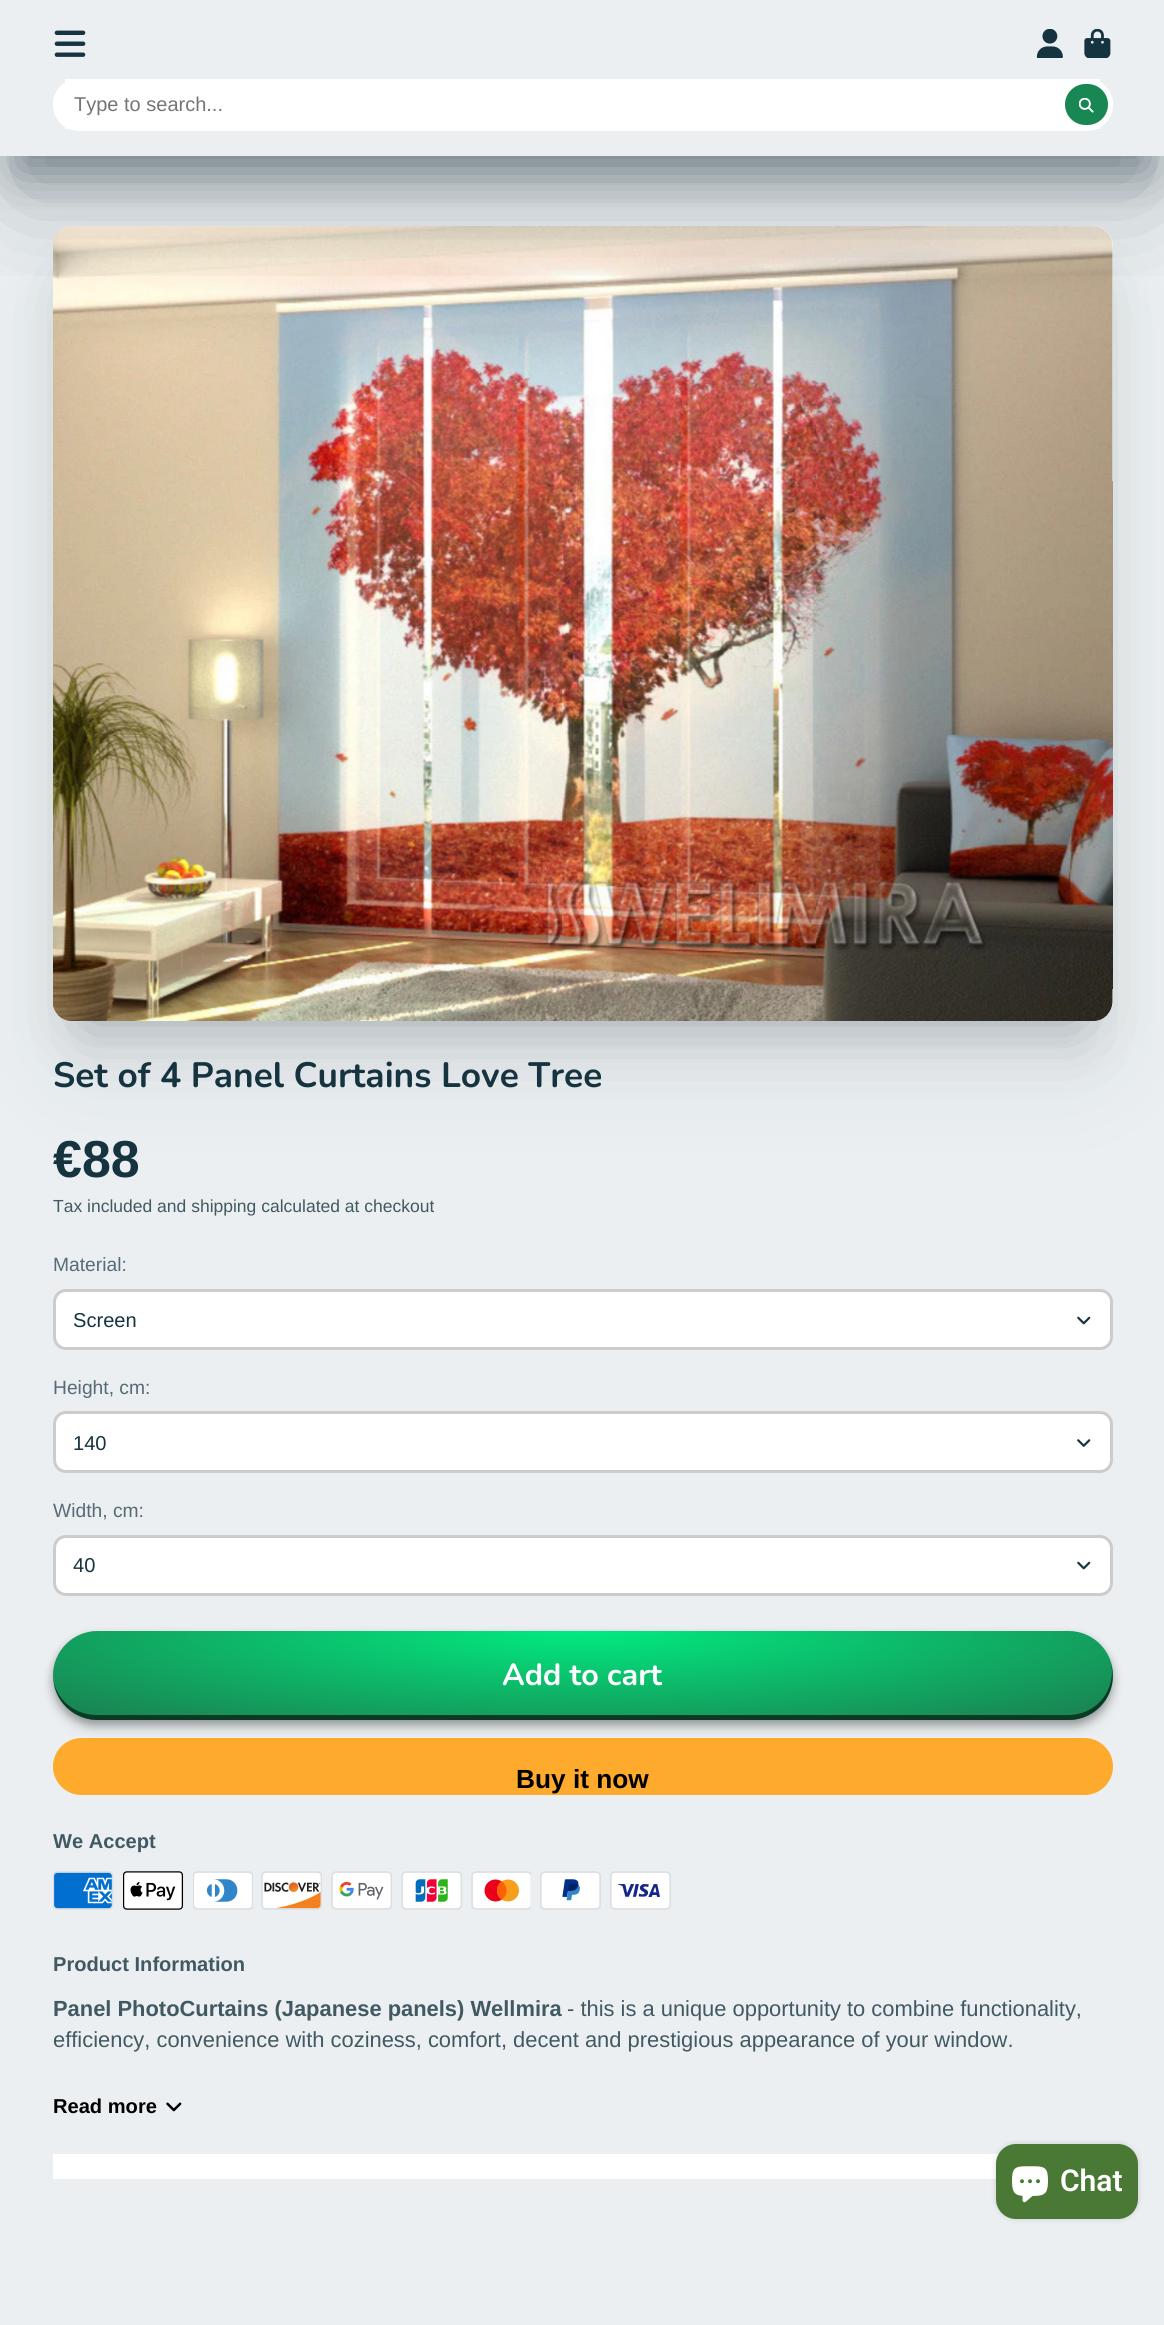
#include <cairo.h>
#include <math.h>
#include <stddef.h>


static void ink(cairo_t *ctx, unsigned color) {
    cairo_set_source_rgb(ctx, (color >> 16) / 255.0, (color >> 8 & 255) / 255.0, (color & 255) / 255.0);
}

static void round_path(cairo_t *ctx, double x, double y, double w, double h, double r) {
    cairo_new_sub_path(ctx);
    cairo_arc(ctx, x + w - r, y + h - r, r, 0, M_PI / 2);
    cairo_arc(ctx, x + r, y + h - r, r, M_PI / 2, M_PI);
    cairo_arc(ctx, x + r, y + r, r, M_PI, 1.5 * M_PI);
    cairo_arc(ctx, x + w - r, y + r, r, 1.5 * M_PI, 2 * M_PI);
    cairo_close_path(ctx);
}

static void blur_box(cairo_t *ctx, double x, double y, double w, double h, double r, double blur, double alpha) {
    cairo_push_group_with_content(ctx, CAIRO_CONTENT_ALPHA);
    cairo_set_operator(ctx, CAIRO_OPERATOR_SOURCE);
    for (int i = 15; i >= -15 && fmin(w, h) + blur * i / 3 > 0; i -= 2) {
        double e = blur * i / 6;
        cairo_set_source_rgba(ctx, 0, 0, 0, alpha * erfc((i - 1) / 8.5) / 2);
        round_path(ctx, x - e, y - e, w + 2 * e, h + 2 * e, fmax(0, fmin(r + e + blur * .6, fmin(w, h) / 2 + e)));
        cairo_fill(ctx);
    }
    cairo_pattern_t *soft = cairo_pop_group(ctx);
    cairo_mask(ctx, soft);
    cairo_pattern_destroy(soft);
}

static void paste(cairo_t *ctx, const char *path, double x, double y, double w, double h) {
    cairo_surface_t *image = cairo_image_surface_create_from_png(path);
    cairo_save(ctx);
    cairo_set_source_surface(ctx, image, x, y);
    cairo_rectangle(ctx, x, y, w, h);
    cairo_fill(ctx);
    cairo_restore(ctx);
    cairo_surface_destroy(image);
}

int main(void) {
    cairo_surface_t *surface = cairo_image_surface_create(CAIRO_FORMAT_RGB24, 1164, 2325);
    cairo_t *ctx = cairo_create(surface);
    cairo_font_options_t *options = cairo_font_options_create();
    cairo_font_options_set_hint_metrics(options, CAIRO_HINT_METRICS_OFF);
    cairo_font_options_set_hint_style(options, CAIRO_HINT_STYLE_NONE);
    cairo_set_font_options(ctx, options);
    cairo_set_miter_limit(ctx, 4);
    cairo_pattern_t *gradient;
    ink(ctx, 0xEBEFF1);
    cairo_paint(ctx);
    ink(ctx, 0x0F242D);
    blur_box(ctx, 85, 293, 995, 728, 0, 33, 0.3);
    blur_box(ctx, 75, 303, 1016, 751, 0, 54.5, 0.1);
    ink(ctx, 0xFFFFFF);
    round_path(ctx, 53, 226, 1060, 795, 20);
    cairo_fill(ctx);
    paste(ctx, "media/5.png", 53, 226, 1060, 795);
    cairo_save(ctx);
    cairo_rectangle(ctx, 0, 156, 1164, 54);
    cairo_clip(ctx);
    ink(ctx, 0x0F242D);
    blur_box(ctx, 18, 50, 1130, 121, 0, 24, 0.4);
    cairo_restore(ctx);
    cairo_save(ctx);
    cairo_rectangle(ctx, 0, 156, 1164, 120);
    cairo_clip(ctx);
    ink(ctx, 0x0F242D);
    blur_box(ctx, 18, 73, 1130, 121, 0, 54.5, 0.3);
    cairo_restore(ctx);
    paste(ctx, "media/1.png", 54, 30, 32, 27);
    paste(ctx, "media/2.png", 1036, 29, 27, 29);
    paste(ctx, "media/3.png", 1084, 29, 27, 29);
    round_path(ctx, 53, 79, 1060, 50, 25);
    cairo_fill(ctx);
    cairo_rectangle(ctx, 65, 79, 1035, 50);
    cairo_fill(ctx);
    round_path(ctx, 53, 79, 1060, 52, 26);
    cairo_fill(ctx);
    cairo_select_font_face(ctx, "Liberation Sans", CAIRO_FONT_SLANT_NORMAL, CAIRO_FONT_WEIGHT_NORMAL);
    cairo_set_font_size(ctx, 20);
    ink(ctx, 0x757575);
    cairo_move_to(ctx, 74, 111);
    cairo_show_text(ctx, "Type to search...");
    ink(ctx, 0x198754);
    round_path(ctx, 1065, 84, 43, 41, 20.5);
    cairo_fill(ctx);
    paste(ctx, "media/4.png", 1079, 98, 15, 15);
    cairo_select_font_face(ctx, "Nunito", CAIRO_FONT_SLANT_NORMAL, CAIRO_FONT_WEIGHT_BOLD);
    cairo_set_font_size(ctx, 35.25);
    ink(ctx, 0x163340);
    cairo_move_to(ctx, 53, 1087);
    cairo_show_text(ctx, "Set of 4 Panel Curtains Love Tree");
    cairo_select_font_face(ctx, "Liberation Sans", CAIRO_FONT_SLANT_NORMAL, CAIRO_FONT_WEIGHT_BOLD);
    cairo_set_font_size(ctx, 52);
    cairo_move_to(ctx, 53, 1177);
    cairo_show_text(ctx, "€88");
    cairo_select_font_face(ctx, "Liberation Sans", CAIRO_FONT_SLANT_NORMAL, CAIRO_FONT_WEIGHT_NORMAL);
    cairo_set_font_size(ctx, 17.5);
    ink(ctx, 0x415963);
    cairo_move_to(ctx, 53, 1212);
    cairo_show_text(ctx, "Tax included and shipping calculated at checkout");
    cairo_set_font_size(ctx, 19.25);
    ink(ctx, 0x566B75);
    cairo_move_to(ctx, 53, 1271);
    cairo_show_text(ctx, "Material:");
    ink(ctx, 0xFFFFFF);
    round_path(ctx, 54.5, 1290.5, 1057, 58, 11.5);
    cairo_fill_preserve(ctx);
    ink(ctx, 0xCCCCCC);
    cairo_set_line_width(ctx, 3);
    cairo_stroke(ctx);
    cairo_set_font_size(ctx, 20.1);
    ink(ctx, 0x163340);
    cairo_move_to(ctx, 73, 1327);
    cairo_show_text(ctx, "Screen");
    paste(ctx, "media/6.png", 1077, 1316, 14, 9);
    cairo_set_font_size(ctx, 19.25);
    ink(ctx, 0x566B75);
    cairo_move_to(ctx, 53, 1394);
    cairo_show_text(ctx, "Height, cm:");
    ink(ctx, 0xFFFFFF);
    round_path(ctx, 54.5, 1412.5, 1057, 59, 11.5);
    cairo_fill_preserve(ctx);
    ink(ctx, 0xCCCCCC);
    cairo_stroke(ctx);
    cairo_set_font_size(ctx, 20.1);
    ink(ctx, 0x163340);
    cairo_move_to(ctx, 73, 1450);
    cairo_show_text(ctx, "140");
    paste(ctx, "media/7.png", 1077, 1439, 14, 8);
    cairo_set_font_size(ctx, 19.25);
    ink(ctx, 0x566B75);
    cairo_move_to(ctx, 53, 1517);
    cairo_show_text(ctx, "Width, cm:");
    ink(ctx, 0xFFFFFF);
    round_path(ctx, 54.5, 1536.5, 1057, 58, 11.5);
    cairo_fill_preserve(ctx);
    ink(ctx, 0xCCCCCC);
    cairo_stroke(ctx);
    cairo_set_font_size(ctx, 20.1);
    ink(ctx, 0x163340);
    cairo_move_to(ctx, 73, 1572);
    cairo_show_text(ctx, "40");
    paste(ctx, "media/6.png", 1077, 1561, 14, 9);
    ink(ctx, 0xFEAA2C);
    round_path(ctx, 53, 1738, 1060, 57, 28.5);
    cairo_fill(ctx);
    ink(ctx, 0x010604);
    blur_box(ctx, 58, 1645, 1050, 80, 40, 9, 0.15);
    blur_box(ctx, 53, 1636, 1060, 89, 44.5, 4.5, 0.3);
    cairo_save(ctx);
    round_path(ctx, 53, 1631, 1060, 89, 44.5);
    cairo_clip(ctx);
    blur_box(ctx, 58, 1645, 1050, 80, 40, 9, 0.15);
    blur_box(ctx, 53, 1636, 1060, 89, 44.5, 4.5, 0.3);
    cairo_restore(ctx);
    gradient = cairo_pattern_create_radial(0, 0, 0, 0, 0, 1);
    cairo_pattern_set_matrix(gradient, &(cairo_matrix_t){1.0 / 750, 0, 0, 1.0 / 126, -1.0 * 583 / 750, -1.0 * 1631 / 126});
    cairo_pattern_add_color_stop_rgba(gradient, 0, 0.004, 0.922, 0.498, 1);
    cairo_pattern_add_color_stop_rgba(gradient, 0.9, 0.098, 0.529, 0.329, 1);
    cairo_set_source(ctx, gradient);
    cairo_pattern_destroy(gradient);
    round_path(ctx, 53, 1631, 1060, 89, 44.5);
    cairo_fill(ctx);
    ink(ctx, 0x0B3A24);
    cairo_new_path(ctx);
    cairo_move_to(ctx, 54, 1683);
    cairo_curve_to(ctx, 57, 1704, 76, 1720, 98, 1720);
    cairo_line_to(ctx, 1068, 1720);
    cairo_curve_to(ctx, 1098, 1720, 1119, 1692, 1111, 1664);
    cairo_line_to(ctx, 1112, 1671);
    cairo_curve_to(ctx, 1112, 1696, 1093, 1715, 1068, 1715);
    cairo_line_to(ctx, 97, 1715);
    cairo_curve_to(ctx, 76, 1715, 59, 1702, 54, 1683);
    cairo_close_path(ctx);
    cairo_fill(ctx);
    cairo_select_font_face(ctx, "Nunito", CAIRO_FONT_SLANT_NORMAL, CAIRO_FONT_WEIGHT_BOLD);
    cairo_set_font_size(ctx, 30.5);
    ink(ctx, 0xFFFFFF);
    cairo_move_to(ctx, 502, 1685);
    cairo_show_text(ctx, "Add to cart");
    cairo_select_font_face(ctx, "Liberation Sans", CAIRO_FONT_SLANT_NORMAL, CAIRO_FONT_WEIGHT_BOLD);
    cairo_set_font_size(ctx, 26.25);
    ink(ctx, 0x000000);
    cairo_move_to(ctx, 516, 1788);
    cairo_show_text(ctx, "Buy it now");
    cairo_set_font_size(ctx, 20.1);
    ink(ctx, 0x415963);
    cairo_move_to(ctx, 53, 1848);
    cairo_show_text(ctx, "We Accept");
    paste(ctx, "media/8.png", 53, 1871, 61, 39);
    paste(ctx, "media/9.png", 123, 1871, 61, 39);
    paste(ctx, "media/10.png", 193, 1871, 60, 39);
    paste(ctx, "media/11.png", 261, 1871, 61, 39);
    paste(ctx, "media/12.png", 331, 1871, 61, 39);
    paste(ctx, "media/13.png", 401, 1871, 61, 39);
    paste(ctx, "media/14.png", 471, 1871, 60, 39);
    paste(ctx, "media/15.png", 540, 1871, 61, 39);
    paste(ctx, "media/16.png", 610, 1871, 61, 39);
    cairo_move_to(ctx, 53, 1971);
    cairo_show_text(ctx, "Product Information");
    cairo_set_font_size(ctx, 21.9);
    cairo_move_to(ctx, 53, 2016);
    cairo_show_text(ctx, "Panel PhotoCurtains (Japanese panels) Wellmira");
    cairo_select_font_face(ctx, "Liberation Sans", CAIRO_FONT_SLANT_NORMAL, CAIRO_FONT_WEIGHT_NORMAL);
    cairo_move_to(ctx, 567, 2016);
    cairo_show_text(ctx, "- this is a unique opportunity to combine functionality,");
    cairo_move_to(ctx, 53, 2047);
    cairo_show_text(ctx, "efficiency, convenience with coziness, comfort, decent and prestigious appearance of your window.");
    cairo_select_font_face(ctx, "Liberation Sans", CAIRO_FONT_SLANT_NORMAL, CAIRO_FONT_WEIGHT_BOLD);
    cairo_set_font_size(ctx, 20.1);
    ink(ctx, 0x000000);
    cairo_move_to(ctx, 53, 2113);
    cairo_show_text(ctx, "Read more");
    paste(ctx, "media/17.png", 166, 2102, 16, 10);
    ink(ctx, 0xFFFFFF);
    cairo_rectangle(ctx, 53, 2154, 946, 25);
    cairo_fill(ctx);
    ink(ctx, 0x000000);
    blur_box(ctx, 996, 2144, 142, 75, 20, 3, 0.15);
    ink(ctx, 0x4A7935);
    round_path(ctx, 996, 2144, 142, 75, 20);
    cairo_fill(ctx);
    paste(ctx, "media/18.png", 1012, 2166, 36, 37);
    cairo_select_font_face(ctx, "Roboto SemiBold", CAIRO_FONT_SLANT_NORMAL, CAIRO_FONT_WEIGHT_NORMAL);
    cairo_set_font_size(ctx, 30);
    ink(ctx, 0xFFFFFF);
    cairo_move_to(ctx, 1060, 2191);
    cairo_show_text(ctx, "Chat");
    cairo_surface_write_to_png(surface, "image.png");
    cairo_font_options_destroy(options);
    cairo_destroy(ctx);
    cairo_surface_destroy(surface);
    return 0;
}
